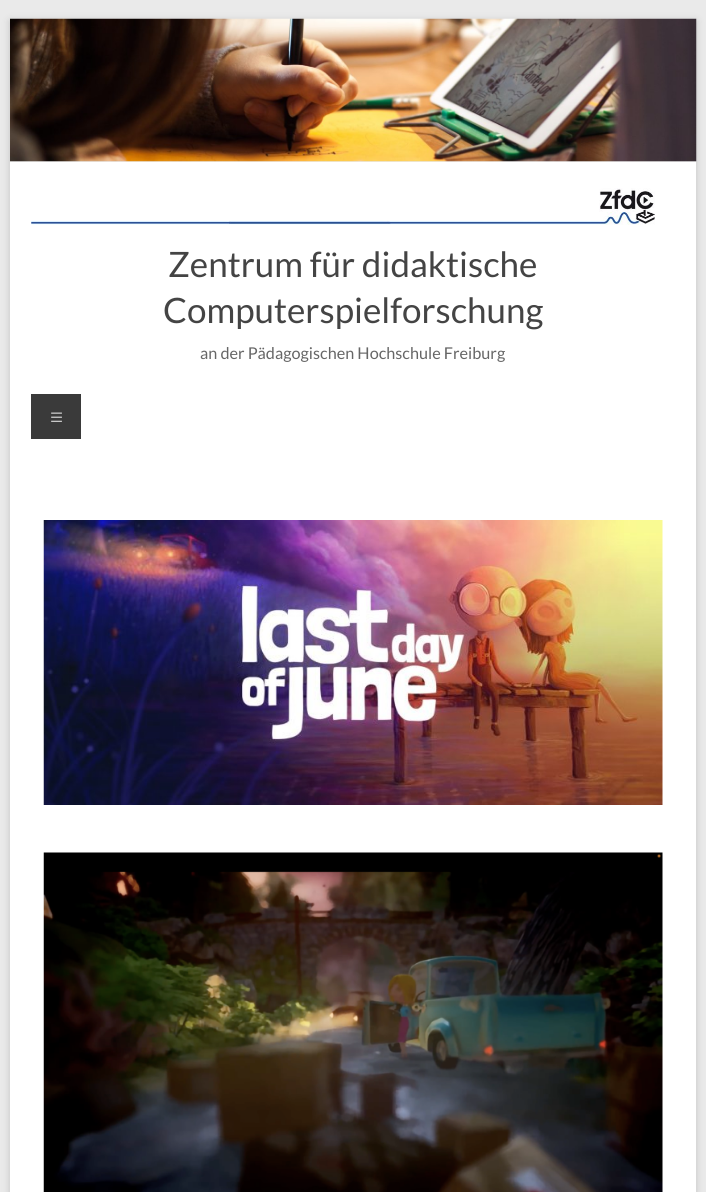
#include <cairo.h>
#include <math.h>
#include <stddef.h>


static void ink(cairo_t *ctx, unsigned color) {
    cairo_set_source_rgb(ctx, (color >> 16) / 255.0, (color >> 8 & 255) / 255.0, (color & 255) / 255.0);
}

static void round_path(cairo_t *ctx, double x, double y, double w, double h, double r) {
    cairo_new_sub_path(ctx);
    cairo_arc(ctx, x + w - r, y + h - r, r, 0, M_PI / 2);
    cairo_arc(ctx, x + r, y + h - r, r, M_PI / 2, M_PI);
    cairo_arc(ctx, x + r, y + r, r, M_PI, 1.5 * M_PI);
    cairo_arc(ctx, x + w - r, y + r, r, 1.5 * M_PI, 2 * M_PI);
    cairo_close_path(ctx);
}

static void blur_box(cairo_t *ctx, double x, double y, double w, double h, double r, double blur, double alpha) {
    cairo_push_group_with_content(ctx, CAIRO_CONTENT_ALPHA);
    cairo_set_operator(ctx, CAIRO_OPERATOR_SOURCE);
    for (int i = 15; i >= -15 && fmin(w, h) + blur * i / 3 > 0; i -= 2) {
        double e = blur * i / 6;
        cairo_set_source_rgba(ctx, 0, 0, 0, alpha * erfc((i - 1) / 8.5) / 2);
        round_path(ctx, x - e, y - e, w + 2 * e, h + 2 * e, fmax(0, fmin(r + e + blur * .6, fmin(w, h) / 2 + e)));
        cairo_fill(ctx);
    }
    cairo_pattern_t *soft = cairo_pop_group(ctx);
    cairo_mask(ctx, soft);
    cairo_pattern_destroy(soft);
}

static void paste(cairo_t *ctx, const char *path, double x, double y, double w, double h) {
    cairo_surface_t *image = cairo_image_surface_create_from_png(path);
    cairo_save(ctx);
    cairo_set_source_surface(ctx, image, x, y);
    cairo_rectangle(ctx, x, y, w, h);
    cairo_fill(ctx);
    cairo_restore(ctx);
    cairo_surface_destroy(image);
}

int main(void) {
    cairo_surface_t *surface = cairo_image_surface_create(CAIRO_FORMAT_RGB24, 706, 1192);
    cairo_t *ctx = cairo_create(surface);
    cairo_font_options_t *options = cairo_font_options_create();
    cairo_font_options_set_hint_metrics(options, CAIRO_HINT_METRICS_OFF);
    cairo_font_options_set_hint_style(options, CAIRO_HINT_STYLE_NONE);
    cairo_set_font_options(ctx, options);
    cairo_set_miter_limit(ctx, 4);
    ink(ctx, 0xEAEAEA);
    cairo_paint(ctx);
    ink(ctx, 0x646464);
    blur_box(ctx, 10, 21, 686, 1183, 0, 4, 0.3);
    ink(ctx, 0xFFFFFF);
    cairo_rectangle(ctx, 10, 162, 686, 1030);
    cairo_fill(ctx);
    ink(ctx, 0xEAEAEA);
    cairo_rectangle(ctx, 10, 161, 686, 1);
    cairo_fill(ctx);
    paste(ctx, "media/1.png", 10, 18, 687, 144);
    paste(ctx, "media/2.png", 31, 188, 624, 37);
    cairo_select_font_face(ctx, "Lato", CAIRO_FONT_SLANT_NORMAL, CAIRO_FONT_WEIGHT_NORMAL);
    cairo_set_font_size(ctx, 35);
    ink(ctx, 0x444444);
    cairo_move_to(ctx, 168, 277);
    cairo_show_text(ctx, "Zentrum für didaktische");
    cairo_move_to(ctx, 163, 323);
    cairo_show_text(ctx, "Computerspielforschung");
    cairo_set_font_size(ctx, 16.25);
    ink(ctx, 0x666666);
    cairo_move_to(ctx, 200, 359);
    cairo_show_text(ctx, "an der Pädagogischen Hochschule Freiburg");
    ink(ctx, 0x3A3A3A);
    cairo_rectangle(ctx, 31, 394, 50, 45);
    cairo_fill(ctx);
    cairo_select_font_face(ctx, "Lato Light", CAIRO_FONT_SLANT_NORMAL, CAIRO_FONT_WEIGHT_NORMAL);
    cairo_set_font_size(ctx, 26);
    ink(ctx, 0xFFFFFF);
    cairo_move_to(ctx, 49, 426);
    cairo_show_text(ctx, "≡");
    paste(ctx, "media/3.png", 43, 520, 620, 285);
    paste(ctx, "media/4.png", 43, 852, 620, 340);
    cairo_surface_write_to_png(surface, "image.png");
    cairo_font_options_destroy(options);
    cairo_destroy(ctx);
    cairo_surface_destroy(surface);
    return 0;
}
